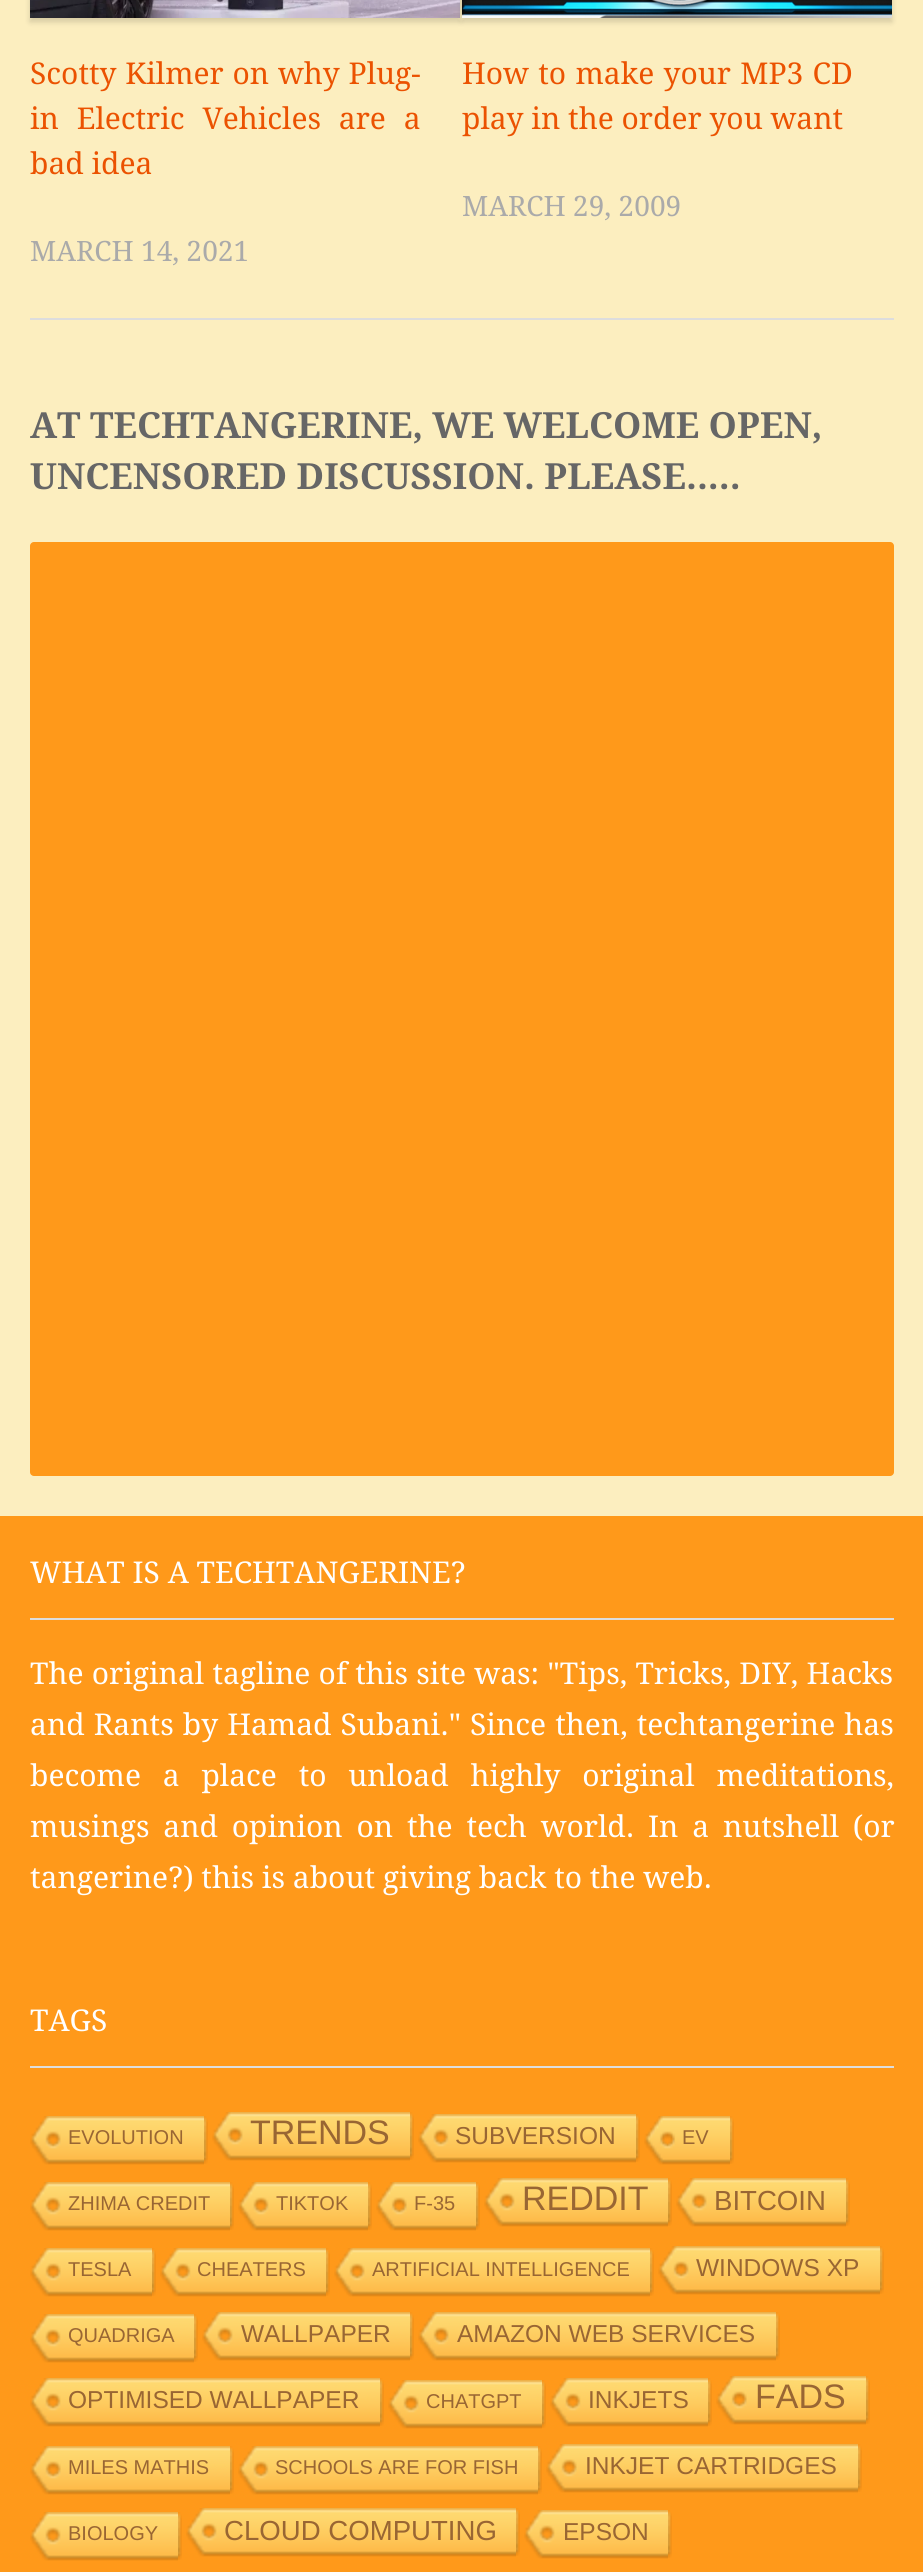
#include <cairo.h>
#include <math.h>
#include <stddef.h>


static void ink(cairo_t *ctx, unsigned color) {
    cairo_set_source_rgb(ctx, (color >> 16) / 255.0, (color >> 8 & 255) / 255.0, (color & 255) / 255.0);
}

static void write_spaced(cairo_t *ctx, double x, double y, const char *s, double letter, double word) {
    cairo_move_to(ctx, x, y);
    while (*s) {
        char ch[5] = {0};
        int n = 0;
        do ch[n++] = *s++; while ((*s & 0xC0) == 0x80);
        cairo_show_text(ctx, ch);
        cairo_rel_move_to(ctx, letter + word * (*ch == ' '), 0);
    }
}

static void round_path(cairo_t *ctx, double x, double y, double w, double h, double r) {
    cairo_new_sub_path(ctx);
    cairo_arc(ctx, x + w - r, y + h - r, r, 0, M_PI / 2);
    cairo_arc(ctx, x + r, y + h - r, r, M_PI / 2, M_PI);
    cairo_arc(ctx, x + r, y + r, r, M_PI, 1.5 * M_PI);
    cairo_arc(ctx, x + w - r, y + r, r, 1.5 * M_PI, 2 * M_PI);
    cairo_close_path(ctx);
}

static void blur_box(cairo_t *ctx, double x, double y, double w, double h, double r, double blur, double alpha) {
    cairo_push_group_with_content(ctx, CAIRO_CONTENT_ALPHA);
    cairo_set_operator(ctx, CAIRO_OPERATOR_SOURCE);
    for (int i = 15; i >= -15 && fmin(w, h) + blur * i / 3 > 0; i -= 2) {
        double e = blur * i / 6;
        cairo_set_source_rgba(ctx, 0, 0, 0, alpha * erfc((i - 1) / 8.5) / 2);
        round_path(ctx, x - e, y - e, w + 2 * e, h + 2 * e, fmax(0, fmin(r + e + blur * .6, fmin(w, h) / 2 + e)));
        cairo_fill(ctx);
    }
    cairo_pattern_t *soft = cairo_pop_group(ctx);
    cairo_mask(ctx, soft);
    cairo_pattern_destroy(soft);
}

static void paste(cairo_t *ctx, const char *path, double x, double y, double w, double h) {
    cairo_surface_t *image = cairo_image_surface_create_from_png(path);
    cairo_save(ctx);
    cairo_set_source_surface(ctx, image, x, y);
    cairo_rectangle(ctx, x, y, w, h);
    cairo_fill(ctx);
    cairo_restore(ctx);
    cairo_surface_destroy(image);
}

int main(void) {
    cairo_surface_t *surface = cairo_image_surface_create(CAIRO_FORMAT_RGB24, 923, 2572);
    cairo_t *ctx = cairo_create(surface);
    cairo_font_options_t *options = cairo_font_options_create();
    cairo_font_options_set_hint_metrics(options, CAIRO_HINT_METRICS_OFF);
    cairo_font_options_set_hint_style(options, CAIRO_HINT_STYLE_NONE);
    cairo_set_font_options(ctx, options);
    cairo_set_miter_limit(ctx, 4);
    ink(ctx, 0xFCEEBF);
    cairo_paint(ctx);
    ink(ctx, 0xDDDDDD);
    cairo_rectangle(ctx, 30, 318, 864, 2);
    cairo_fill(ctx);
    ink(ctx, 0x000000);
    blur_box(ctx, 30, -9, 430, 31, 0, 3, 0.15);
    paste(ctx, "media/1.png", 30, 0, 430, 18);
    cairo_select_font_face(ctx, "Droid Serif", CAIRO_FONT_SLANT_NORMAL, CAIRO_FONT_WEIGHT_NORMAL);
    cairo_set_font_size(ctx, 30);
    ink(ctx, 0xEB5201);
    write_spaced(ctx, 30, 84, "Scotty Kilmer on why Plug-", 0, 1);
    write_spaced(ctx, 30, 129, "in Electric Vehicles are a", 0, 10);
    cairo_move_to(ctx, 30, 174);
    cairo_show_text(ctx, "bad idea");
    cairo_set_font_size(ctx, 28);
    ink(ctx, 0xAAAAAA);
    cairo_move_to(ctx, 30, 261);
    cairo_show_text(ctx, "MARCH 14, 2021");
    ink(ctx, 0x000000);
    blur_box(ctx, 462, -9, 430, 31, 0, 3, 0.15);
    paste(ctx, "media/2.png", 462, 0, 430, 18);
    cairo_set_font_size(ctx, 30);
    ink(ctx, 0xEB5201);
    write_spaced(ctx, 462, 84, "How to make your MP3 CD", 0, 1.5);
    cairo_move_to(ctx, 462, 129);
    cairo_show_text(ctx, "play in the order you want");
    cairo_set_font_size(ctx, 28);
    ink(ctx, 0xAAAAAA);
    cairo_move_to(ctx, 462, 216);
    cairo_show_text(ctx, "MARCH 29, 2009");
    cairo_select_font_face(ctx, "Droid Serif", CAIRO_FONT_SLANT_NORMAL, CAIRO_FONT_WEIGHT_BOLD);
    cairo_set_font_size(ctx, 36);
    ink(ctx, 0x666666);
    cairo_move_to(ctx, 30, 438);
    cairo_show_text(ctx, "AT TECHTANGERINE, WE WELCOME OPEN,");
    cairo_move_to(ctx, 30, 489);
    cairo_show_text(ctx, "UNCENSORED DISCUSSION. PLEASE.....");
    ink(ctx, 0xFF991A);
    round_path(ctx, 30, 542, 864, 934, 4);
    cairo_fill(ctx);
    cairo_rectangle(ctx, 0, 1516, 923, 1056);
    cairo_fill(ctx);
    ink(ctx, 0xDDDDDD);
    cairo_rectangle(ctx, 30, 1618, 864, 2);
    cairo_fill(ctx);
    cairo_select_font_face(ctx, "Droid Serif", CAIRO_FONT_SLANT_NORMAL, CAIRO_FONT_WEIGHT_NORMAL);
    cairo_set_font_size(ctx, 30);
    ink(ctx, 0xFFFFFF);
    cairo_move_to(ctx, 30, 1583);
    cairo_show_text(ctx, "WHAT IS A TECHTANGERINE?");
    write_spaced(ctx, 30, 1684, "The original tagline of this site was: \"Tips, Tricks, DIY, Hacks", 0, 0.5);
    write_spaced(ctx, 30, 1735, "and Rants by Hamad Subani.\" Since then, techtangerine has", 0, 1.25);
    write_spaced(ctx, 30, 1786, "become a place to unload highly original meditations,", 0, 14);
    write_spaced(ctx, 30, 1837, "musings and opinion on the tech world. In a nutshell (or", 0, 6);
    cairo_move_to(ctx, 30, 1888);
    cairo_show_text(ctx, "tangerine?) this is about giving back to the web.");
    ink(ctx, 0xDDDDDD);
    cairo_rectangle(ctx, 30, 2066, 864, 2);
    cairo_fill(ctx);
    ink(ctx, 0xFFFFFF);
    cairo_move_to(ctx, 30, 2031);
    cairo_show_text(ctx, "TAGS");
    paste(ctx, "media/3.png", 30, 2116, 174, 49);
    cairo_select_font_face(ctx, "Liberation Sans", CAIRO_FONT_SLANT_NORMAL, CAIRO_FONT_WEIGHT_NORMAL);
    cairo_set_font_size(ctx, 20);
    ink(ctx, 0x996633);
    cairo_move_to(ctx, 68, 2144);
    cairo_show_text(ctx, "EVOLUTION");
    paste(ctx, "media/4.png", 204, 2116, 4, 48);
    paste(ctx, "media/5.png", 212, 2112, 198, 49);
    cairo_set_font_size(ctx, 34);
    cairo_move_to(ctx, 250, 2144);
    cairo_show_text(ctx, "TRENDS");
    paste(ctx, "media/4.png", 410, 2112, 4, 48);
    paste(ctx, "media/6.png", 418, 2114, 218, 49);
    cairo_set_font_size(ctx, 24.5);
    cairo_move_to(ctx, 455, 2144);
    cairo_show_text(ctx, "SUBVERSION");
    paste(ctx, "media/4.png", 636, 2114, 4, 48);
    paste(ctx, "media/7.png", 644, 2116, 86, 49);
    cairo_set_font_size(ctx, 20);
    cairo_move_to(ctx, 682, 2144);
    cairo_show_text(ctx, "EV");
    paste(ctx, "media/4.png", 730, 2116, 4, 48);
    paste(ctx, "media/8.png", 30, 2182, 200, 49);
    cairo_move_to(ctx, 68, 2210);
    cairo_show_text(ctx, "ZHIMA CREDIT");
    paste(ctx, "media/4.png", 230, 2182, 4, 48);
    paste(ctx, "media/9.png", 238, 2182, 130, 49);
    cairo_move_to(ctx, 276, 2210);
    cairo_show_text(ctx, "TIKTOK");
    paste(ctx, "media/4.png", 368, 2182, 4, 48);
    paste(ctx, "media/10.png", 376, 2182, 100, 49);
    cairo_move_to(ctx, 414, 2210);
    cairo_show_text(ctx, "F-35");
    paste(ctx, "media/4.png", 476, 2182, 4, 48);
    paste(ctx, "media/11.png", 484, 2178, 184, 49);
    cairo_set_font_size(ctx, 34);
    cairo_move_to(ctx, 522, 2210);
    cairo_show_text(ctx, "REDDIT");
    paste(ctx, "media/4.png", 668, 2178, 4, 48);
    paste(ctx, "media/12.png", 676, 2178, 170, 49);
    cairo_set_font_size(ctx, 27.6);
    cairo_move_to(ctx, 714, 2210);
    cairo_show_text(ctx, "BITCOIN");
    paste(ctx, "media/4.png", 846, 2178, 4, 48);
    paste(ctx, "media/13.png", 30, 2248, 122, 49);
    cairo_set_font_size(ctx, 20);
    cairo_move_to(ctx, 68, 2276);
    cairo_show_text(ctx, "TESLA");
    paste(ctx, "media/4.png", 152, 2248, 4, 48);
    paste(ctx, "media/14.png", 160, 2248, 166, 49);
    cairo_move_to(ctx, 197, 2276);
    cairo_show_text(ctx, "CHEATERS");
    paste(ctx, "media/4.png", 326, 2248, 4, 48);
    paste(ctx, "media/15.png", 334, 2248, 316, 49);
    cairo_move_to(ctx, 372, 2276);
    cairo_show_text(ctx, "ARTIFICIAL INTELLIGENCE");
    paste(ctx, "media/4.png", 650, 2248, 4, 48);
    paste(ctx, "media/16.png", 658, 2246, 222, 49);
    cairo_set_font_size(ctx, 24.5);
    cairo_move_to(ctx, 696, 2276);
    cairo_show_text(ctx, "WINDOWS XP");
    paste(ctx, "media/4.png", 880, 2246, 4, 48);
    paste(ctx, "media/17.png", 30, 2314, 164, 49);
    cairo_set_font_size(ctx, 20);
    cairo_move_to(ctx, 68, 2342);
    cairo_show_text(ctx, "QUADRIGA");
    paste(ctx, "media/4.png", 194, 2314, 4, 48);
    paste(ctx, "media/18.png", 202, 2312, 208, 49);
    cairo_set_font_size(ctx, 24.5);
    cairo_move_to(ctx, 241, 2342);
    cairo_show_text(ctx, "WALLPAPER");
    paste(ctx, "media/4.png", 410, 2312, 4, 48);
    paste(ctx, "media/19.png", 418, 2312, 358, 49);
    cairo_move_to(ctx, 457, 2342);
    cairo_show_text(ctx, "AMAZON WEB SERVICES");
    paste(ctx, "media/4.png", 776, 2312, 4, 48);
    paste(ctx, "media/20.png", 30, 2378, 350, 49);
    cairo_move_to(ctx, 68, 2408);
    cairo_show_text(ctx, "OPTIMISED WALLPAPER");
    paste(ctx, "media/4.png", 380, 2378, 4, 48);
    paste(ctx, "media/21.png", 388, 2380, 154, 49);
    cairo_set_font_size(ctx, 20);
    cairo_move_to(ctx, 426, 2408);
    cairo_show_text(ctx, "CHATGPT");
    paste(ctx, "media/4.png", 542, 2380, 4, 48);
    paste(ctx, "media/22.png", 550, 2378, 158, 49);
    cairo_set_font_size(ctx, 24.5);
    cairo_move_to(ctx, 588, 2408);
    cairo_show_text(ctx, "INKJETS");
    paste(ctx, "media/4.png", 708, 2378, 4, 48);
    paste(ctx, "media/23.png", 716, 2376, 150, 49);
    cairo_set_font_size(ctx, 34);
    cairo_move_to(ctx, 755, 2408);
    cairo_show_text(ctx, "FADS");
    paste(ctx, "media/4.png", 866, 2376, 4, 48);
    paste(ctx, "media/24.png", 30, 2446, 200, 49);
    cairo_set_font_size(ctx, 20);
    cairo_move_to(ctx, 68, 2474);
    cairo_show_text(ctx, "MILES MATHIS");
    paste(ctx, "media/4.png", 230, 2446, 4, 48);
    paste(ctx, "media/25.png", 238, 2446, 300, 49);
    cairo_move_to(ctx, 275, 2474);
    cairo_show_text(ctx, "SCHOOLS ARE FOR FISH");
    paste(ctx, "media/4.png", 538, 2446, 4, 48);
    paste(ctx, "media/26.png", 546, 2444, 312, 49);
    cairo_set_font_size(ctx, 24.5);
    cairo_move_to(ctx, 585, 2474);
    cairo_show_text(ctx, "INKJET CARTRIDGES");
    paste(ctx, "media/4.png", 858, 2444, 4, 48);
    paste(ctx, "media/27.png", 30, 2512, 148, 49);
    cairo_set_font_size(ctx, 20);
    cairo_move_to(ctx, 68, 2540);
    cairo_show_text(ctx, "BIOLOGY");
    paste(ctx, "media/4.png", 178, 2512, 4, 48);
    paste(ctx, "media/28.png", 186, 2508, 330, 49);
    cairo_set_font_size(ctx, 27.6);
    cairo_move_to(ctx, 224, 2540);
    cairo_show_text(ctx, "CLOUD COMPUTING");
    paste(ctx, "media/4.png", 516, 2508, 4, 48);
    paste(ctx, "media/29.png", 524, 2510, 144, 49);
    cairo_set_font_size(ctx, 24.5);
    cairo_move_to(ctx, 563, 2540);
    cairo_show_text(ctx, "EPSON");
    paste(ctx, "media/4.png", 668, 2510, 4, 48);
    cairo_surface_write_to_png(surface, "image.png");
    cairo_font_options_destroy(options);
    cairo_destroy(ctx);
    cairo_surface_destroy(surface);
    return 0;
}
